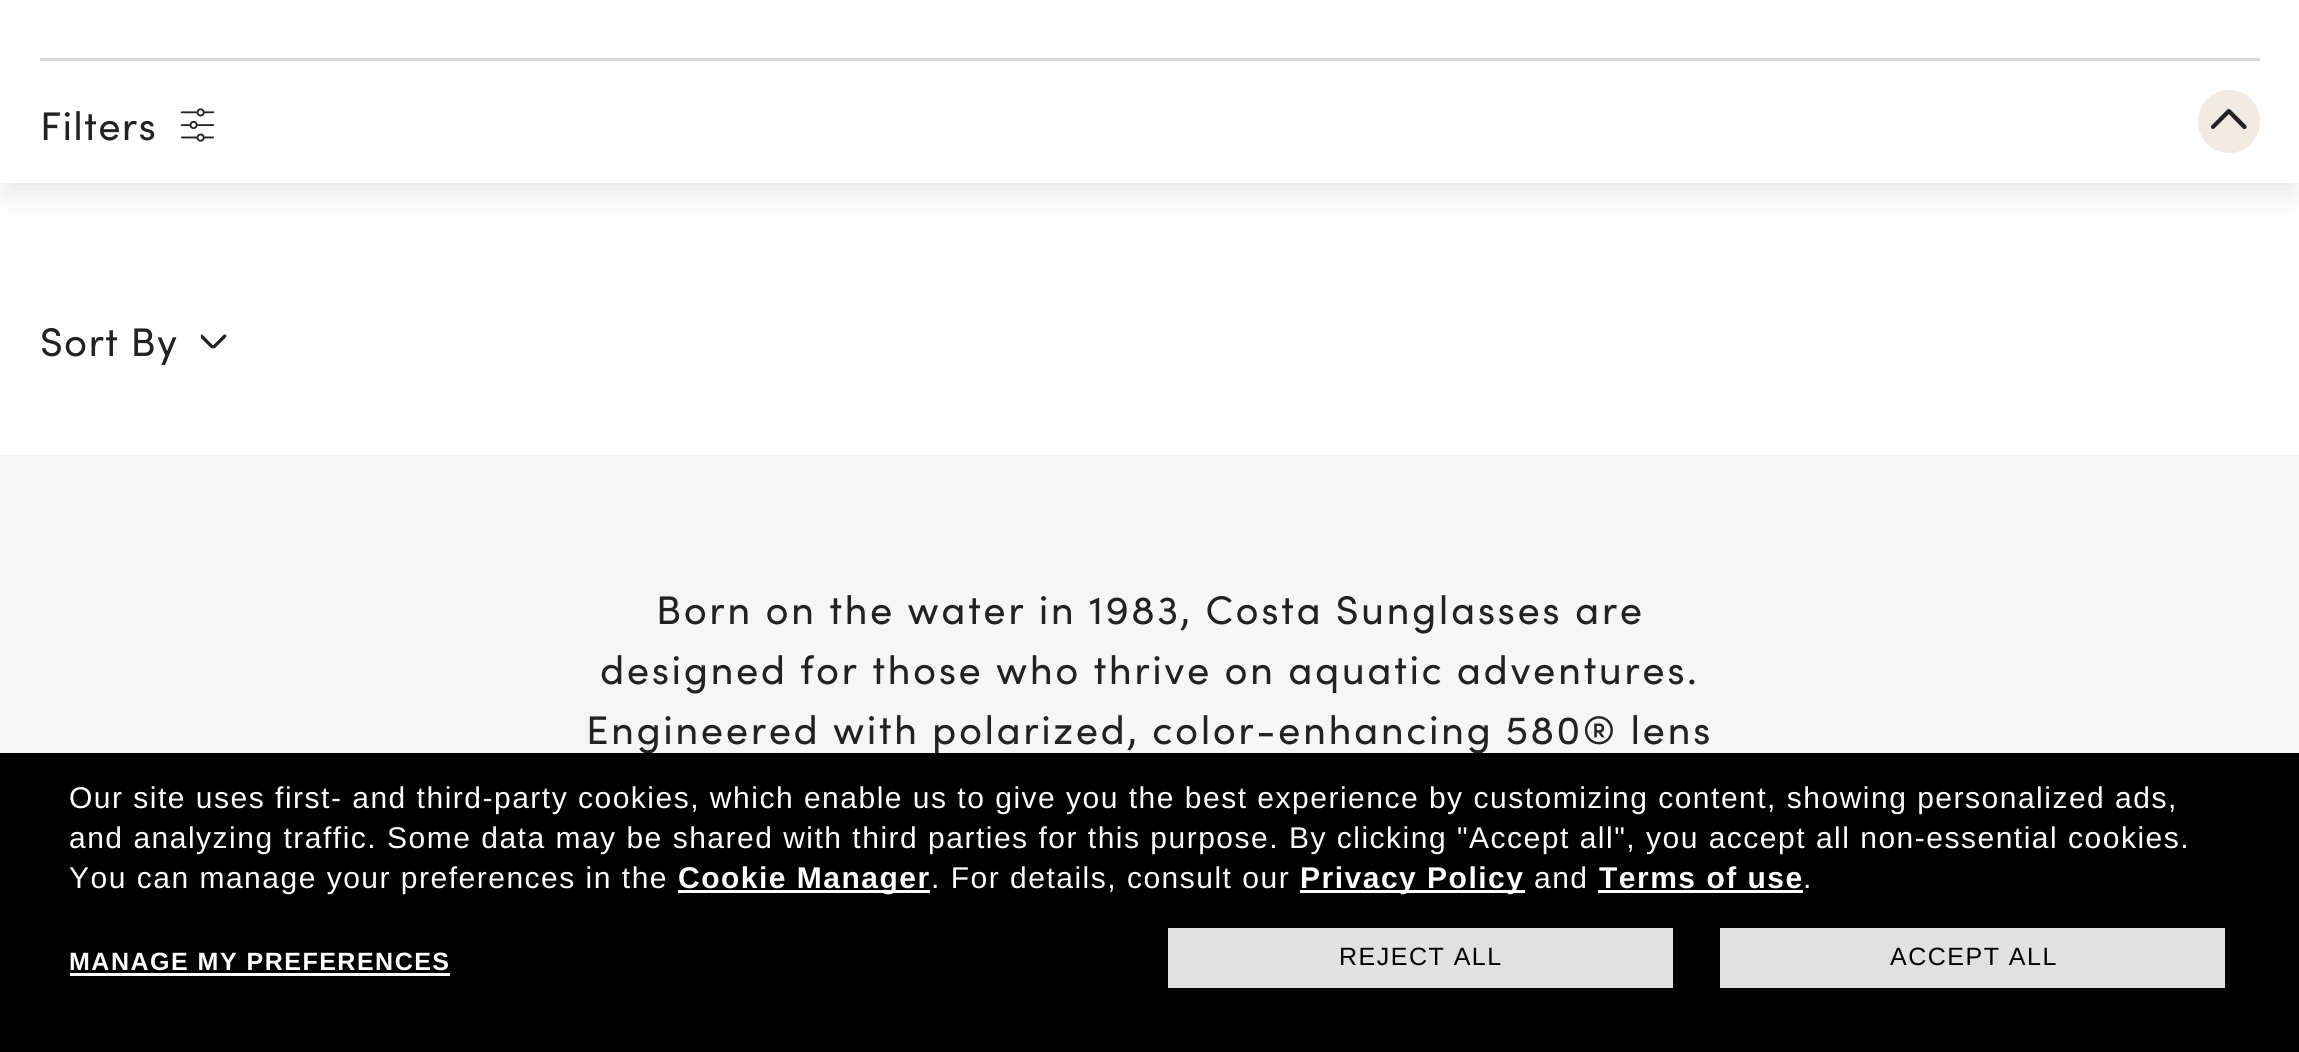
#include <cairo.h>
#include <math.h>
#include <stddef.h>

typedef struct { double x, y; const char *s; } line_t;

static void ink(cairo_t *ctx, unsigned color) {
    cairo_set_source_rgb(ctx, (color >> 16) / 255.0, (color >> 8 & 255) / 255.0, (color & 255) / 255.0);
}

static void write_spaced(cairo_t *ctx, double x, double y, const char *s, double letter, double word) {
    cairo_move_to(ctx, x, y);
    while (*s) {
        char ch[5] = {0};
        int n = 0;
        do ch[n++] = *s++; while ((*s & 0xC0) == 0x80);
        cairo_show_text(ctx, ch);
        cairo_rel_move_to(ctx, letter + word * (*ch == ' '), 0);
    }
}

static void round_path(cairo_t *ctx, double x, double y, double w, double h, double r) {
    cairo_new_sub_path(ctx);
    cairo_arc(ctx, x + w - r, y + h - r, r, 0, M_PI / 2);
    cairo_arc(ctx, x + r, y + h - r, r, M_PI / 2, M_PI);
    cairo_arc(ctx, x + r, y + r, r, M_PI, 1.5 * M_PI);
    cairo_arc(ctx, x + w - r, y + r, r, 1.5 * M_PI, 2 * M_PI);
    cairo_close_path(ctx);
}

static void blur_box(cairo_t *ctx, double x, double y, double w, double h, double r, double blur, double alpha) {
    cairo_push_group_with_content(ctx, CAIRO_CONTENT_ALPHA);
    cairo_set_operator(ctx, CAIRO_OPERATOR_SOURCE);
    for (int i = 15; i >= -15 && fmin(w, h) + blur * i / 3 > 0; i -= 2) {
        double e = blur * i / 6;
        cairo_set_source_rgba(ctx, 0, 0, 0, alpha * erfc((i - 1) / 8.5) / 2);
        round_path(ctx, x - e, y - e, w + 2 * e, h + 2 * e, fmax(0, fmin(r + e + blur * .6, fmin(w, h) / 2 + e)));
        cairo_fill(ctx);
    }
    cairo_pattern_t *soft = cairo_pop_group(ctx);
    cairo_mask(ctx, soft);
    cairo_pattern_destroy(soft);
}

static void paste(cairo_t *ctx, const char *path, double x, double y, double w, double h) {
    cairo_surface_t *image = cairo_image_surface_create_from_png(path);
    cairo_save(ctx);
    cairo_set_source_surface(ctx, image, x, y);
    cairo_rectangle(ctx, x, y, w, h);
    cairo_fill(ctx);
    cairo_restore(ctx);
    cairo_surface_destroy(image);
}

int main(void) {
    cairo_surface_t *surface = cairo_image_surface_create(CAIRO_FORMAT_RGB24, 2299, 1052);
    cairo_t *ctx = cairo_create(surface);
    cairo_font_options_t *options = cairo_font_options_create();
    cairo_font_options_set_hint_metrics(options, CAIRO_HINT_METRICS_OFF);
    cairo_font_options_set_hint_style(options, CAIRO_HINT_STYLE_NONE);
    cairo_set_font_options(ctx, options);
    cairo_set_miter_limit(ctx, 4);
    ink(ctx, 0xFFFFFF);
    cairo_paint(ctx);
    ink(ctx, 0x606170);
    blur_box(ctx, 5, -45, 2290, 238, 0, 15, 0.16);
    ink(ctx, 0xFFFFFF);
    cairo_rectangle(ctx, 0, 0, 2299, 183);
    cairo_fill(ctx);
    ink(ctx, 0xD8D8D8);
    cairo_rectangle(ctx, 40, 58, 2220, 3);
    cairo_fill(ctx);
    cairo_select_font_face(ctx, "Sofia", CAIRO_FONT_SLANT_NORMAL, CAIRO_FONT_WEIGHT_NORMAL);
    cairo_set_font_size(ctx, 40);
    ink(ctx, 0x222222);
    write_spaced(ctx, 40, 140, "Filters", 1.25, 0);
    paste(ctx, "media/1.png", 180, 108, 35, 34);
    ink(ctx, 0xF0EAE2);
    round_path(ctx, 2198, 90, 62, 63, 31);
    cairo_fill(ctx);
    paste(ctx, "media/2.png", 2210, 108, 37, 22);
    ink(ctx, 0x222222);
    write_spaced(ctx, 40, 356, "Sort By", 1.25, 0);
    paste(ctx, "media/3.png", 200, 334, 27, 15);
    ink(ctx, 0xF6F6F6);
    cairo_rectangle(ctx, 0, 455, 2299, 298);
    cairo_fill(ctx);
    ink(ctx, 0x222222);
    {
        static const line_t items[] = {
            {656, 624, "Born on the water in 1983, Costa Sunglasses are"},
            {600, 684, "designed for those who thrive on aquatic adventures."},
            {586, 744, "Engineered with polarized, color-enhancing 580® lens"},
        };
        for (size_t i = 0; i < sizeof items / sizeof *items; i++) {
            write_spaced(ctx, items[i].x, items[i].y, items[i].s, 2.5, 0);
        }
    }
    ink(ctx, 0x000000);
    cairo_rectangle(ctx, 0, 753, 2299, 299);
    cairo_fill(ctx);
    cairo_select_font_face(ctx, "Liberation Sans", CAIRO_FONT_SLANT_NORMAL, CAIRO_FONT_WEIGHT_NORMAL);
    cairo_set_font_size(ctx, 30);
    ink(ctx, 0xFFFFFF);
    {
        static const line_t items[] = {
            {69, 808, "Our site uses first- and third-party cookies, which enable us to give you the best experience by customizing content, showing personalized ads,"},
            {69, 848, "and analyzing traffic. Some data may be shared with third parties for this purpose. By clicking \"Accept all\", you accept all non-essential cookies."},
            {69, 888, "You can manage your preferences in the"},
        };
        for (size_t i = 0; i < sizeof items / sizeof *items; i++) {
            write_spaced(ctx, items[i].x, items[i].y, items[i].s, 1.5, 0);
        }
    }
    cairo_rectangle(ctx, 678, 890, 252, 3);
    cairo_fill(ctx);
    cairo_select_font_face(ctx, "Liberation Sans", CAIRO_FONT_SLANT_NORMAL, CAIRO_FONT_WEIGHT_BOLD);
    write_spaced(ctx, 678, 888, "Cookie Manager", 1.5, 0);
    cairo_select_font_face(ctx, "Liberation Sans", CAIRO_FONT_SLANT_NORMAL, CAIRO_FONT_WEIGHT_NORMAL);
    write_spaced(ctx, 931, 888, ". For details, consult our", 1.5, 0);
    cairo_rectangle(ctx, 1300, 890, 225, 3);
    cairo_fill(ctx);
    cairo_select_font_face(ctx, "Liberation Sans", CAIRO_FONT_SLANT_NORMAL, CAIRO_FONT_WEIGHT_BOLD);
    write_spaced(ctx, 1300, 888, "Privacy Policy", 1.5, 0);
    cairo_select_font_face(ctx, "Liberation Sans", CAIRO_FONT_SLANT_NORMAL, CAIRO_FONT_WEIGHT_NORMAL);
    write_spaced(ctx, 1534, 888, "and", 1.5, 0);
    cairo_select_font_face(ctx, "Liberation Sans", CAIRO_FONT_SLANT_NORMAL, CAIRO_FONT_WEIGHT_BOLD);
    write_spaced(ctx, 1599, 888, "Terms of use", 1.5, 0);
    cairo_select_font_face(ctx, "Liberation Sans", CAIRO_FONT_SLANT_NORMAL, CAIRO_FONT_WEIGHT_NORMAL);
    write_spaced(ctx, 1803, 888, ".", 1.5, 0);
    cairo_rectangle(ctx, 1598, 890, 205, 3);
    cairo_fill(ctx);
    cairo_select_font_face(ctx, "Liberation Sans", CAIRO_FONT_SLANT_NORMAL, CAIRO_FONT_WEIGHT_BOLD);
    cairo_set_font_size(ctx, 25);
    write_spaced(ctx, 69, 970, "MANAGE MY PREFERENCES", 1.5, 0);
    cairo_rectangle(ctx, 70, 973, 380, 3);
    cairo_fill(ctx);
    ink(ctx, 0xE1E1E1);
    cairo_rectangle(ctx, 1168, 928, 505, 60);
    cairo_fill(ctx);
    cairo_select_font_face(ctx, "Liberation Sans", CAIRO_FONT_SLANT_NORMAL, CAIRO_FONT_WEIGHT_NORMAL);
    ink(ctx, 0x000000);
    write_spaced(ctx, 1339, 965, "REJECT ALL", 1.5, 0);
    ink(ctx, 0xE1E1E1);
    cairo_rectangle(ctx, 1720, 928, 505, 60);
    cairo_fill(ctx);
    ink(ctx, 0x000000);
    write_spaced(ctx, 1890, 965, "ACCEPT ALL", 1.5, 0);
    cairo_surface_write_to_png(surface, "image.png");
    cairo_font_options_destroy(options);
    cairo_destroy(ctx);
    cairo_surface_destroy(surface);
    return 0;
}
